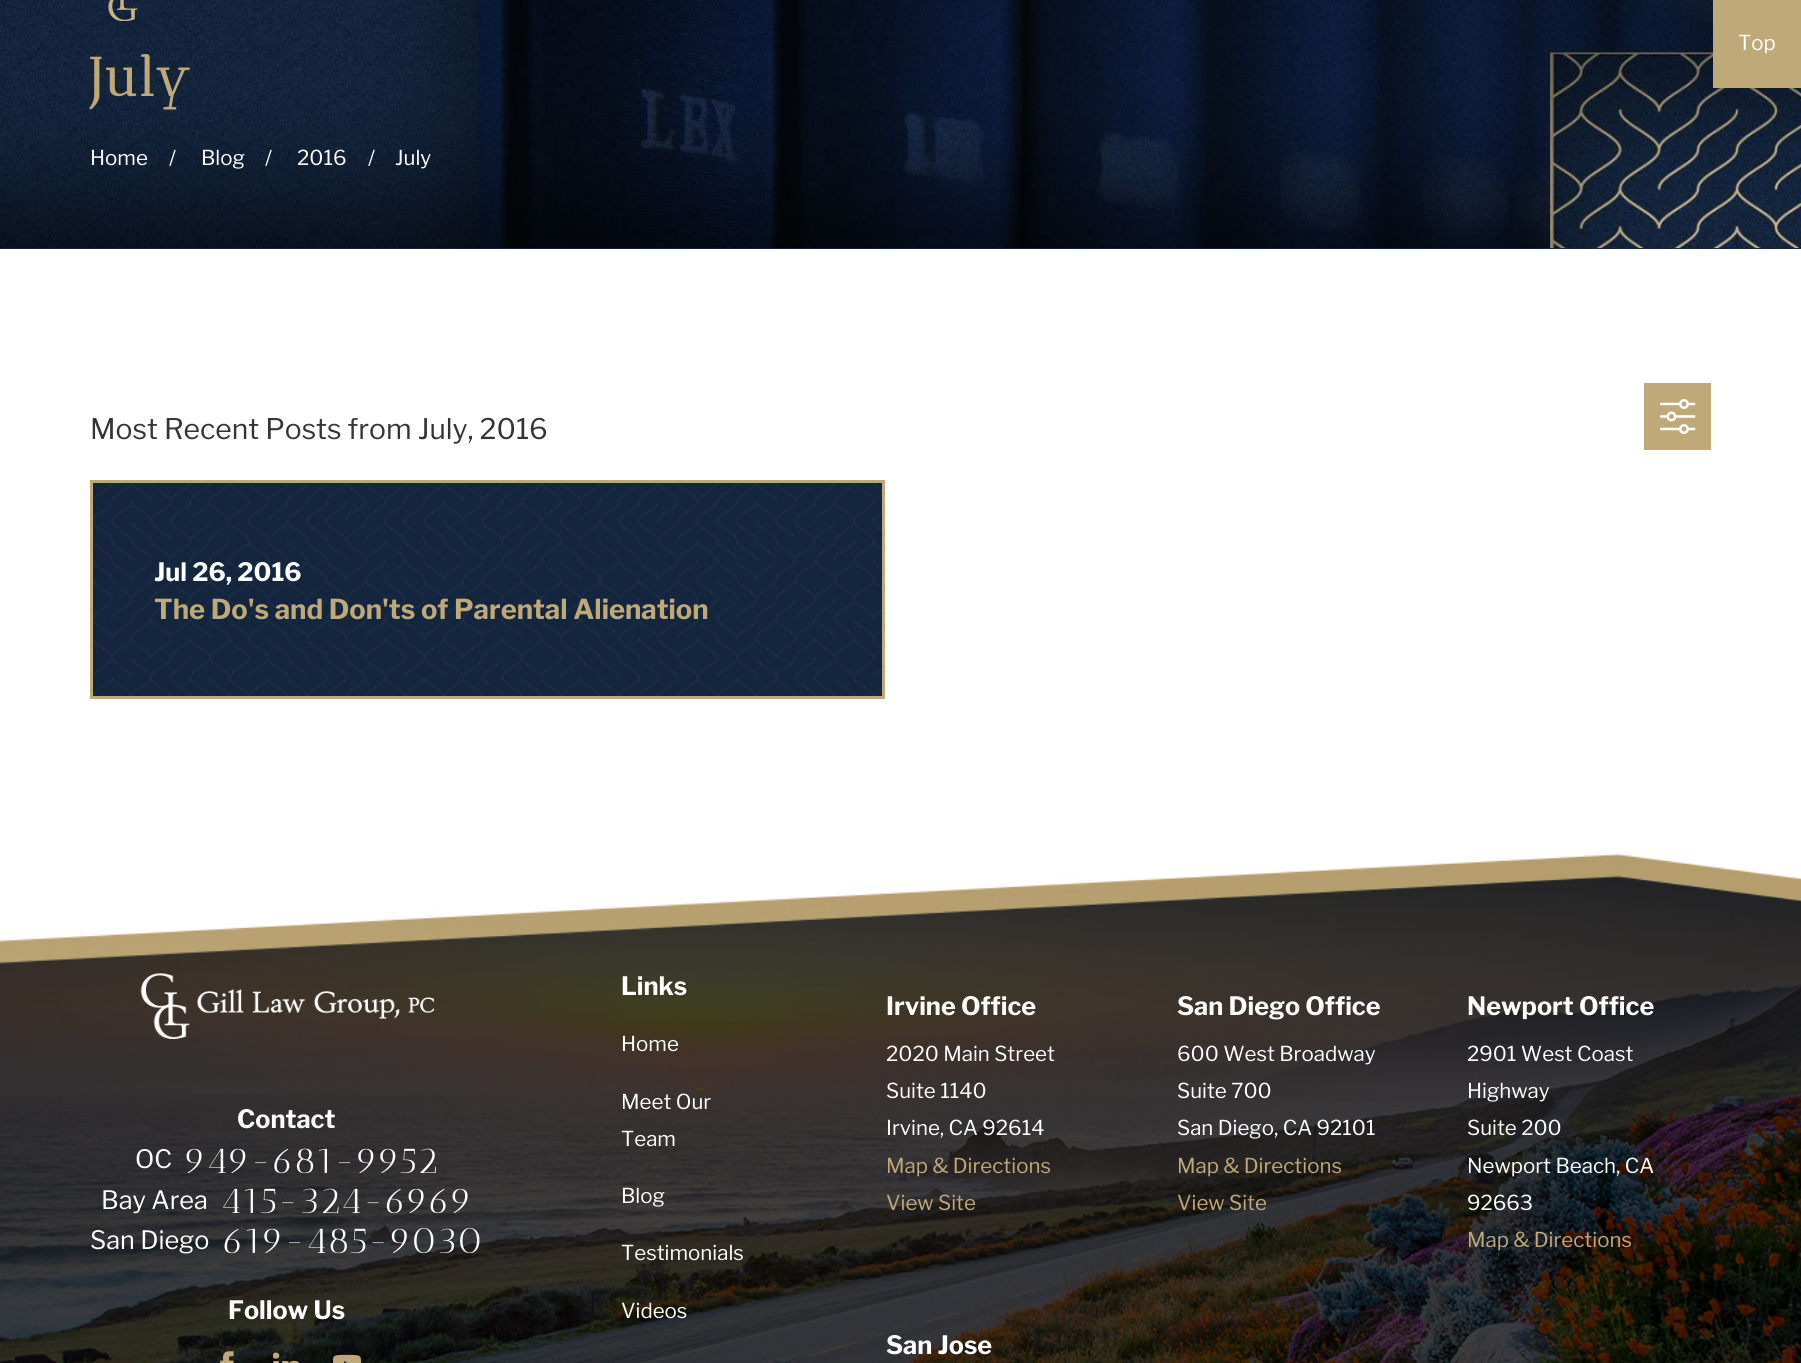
#include <cairo.h>
#include <math.h>
#include <stddef.h>

typedef struct { double x, y; const char *s; } line_t;

static void ink(cairo_t *ctx, unsigned color) {
    cairo_set_source_rgb(ctx, (color >> 16) / 255.0, (color >> 8 & 255) / 255.0, (color & 255) / 255.0);
}

static void paste(cairo_t *ctx, const char *path, double x, double y, double w, double h) {
    cairo_surface_t *image = cairo_image_surface_create_from_png(path);
    cairo_save(ctx);
    cairo_set_source_surface(ctx, image, x, y);
    cairo_rectangle(ctx, x, y, w, h);
    cairo_fill(ctx);
    cairo_restore(ctx);
    cairo_surface_destroy(image);
}

int main(void) {
    cairo_surface_t *surface = cairo_image_surface_create(CAIRO_FORMAT_RGB24, 1801, 1363);
    cairo_t *ctx = cairo_create(surface);
    cairo_font_options_t *options = cairo_font_options_create();
    cairo_font_options_set_hint_metrics(options, CAIRO_HINT_METRICS_OFF);
    cairo_font_options_set_hint_style(options, CAIRO_HINT_STYLE_NONE);
    cairo_set_font_options(ctx, options);
    cairo_set_miter_limit(ctx, 4);
    ink(ctx, 0xFFFFFF);
    cairo_paint(ctx);
    ink(ctx, 0x14253E);
    cairo_rectangle(ctx, 0, 248, 1801, 1);
    cairo_fill(ctx);
    paste(ctx, "media/1.png", 0, 0, 1801, 249);
    ink(ctx, 0xC0A978);
    cairo_rectangle(ctx, 1713, 0, 88, 88);
    cairo_fill(ctx);
    cairo_select_font_face(ctx, "Libre Franklin", CAIRO_FONT_SLANT_NORMAL, CAIRO_FONT_WEIGHT_NORMAL);
    cairo_set_font_size(ctx, 20.5);
    ink(ctx, 0xFFFFFF);
    cairo_move_to(ctx, 1738, 50);
    cairo_show_text(ctx, "Top");
    paste(ctx, "media/2.png", 108, 0, 30, 21);
    cairo_select_font_face(ctx, "Antic Didone", CAIRO_FONT_SLANT_NORMAL, CAIRO_FONT_WEIGHT_BOLD);
    cairo_set_font_size(ctx, 54);
    ink(ctx, 0xC0A978);
    cairo_move_to(ctx, 90, 96);
    cairo_show_text(ctx, "July");
    cairo_select_font_face(ctx, "Libre Franklin", CAIRO_FONT_SLANT_NORMAL, CAIRO_FONT_WEIGHT_NORMAL);
    cairo_set_font_size(ctx, 20.5);
    ink(ctx, 0xFFFFFF);
    {
        static const line_t items[] = {
            {90, 165, "Home"},
            {169, 165, "/"},
            {201, 165, "Blog"},
            {265, 165, "/"},
            {297, 165, "2016"},
            {368, 165, "/"},
            {395, 165, "July"},
        };
        for (size_t i = 0; i < sizeof items / sizeof *items; i++) {
            cairo_move_to(ctx, items[i].x, items[i].y);
            cairo_show_text(ctx, items[i].s);
        }
    }
    cairo_set_font_size(ctx, 28.25);
    ink(ctx, 0x343434);
    cairo_move_to(ctx, 90, 439);
    cairo_show_text(ctx, "Most Recent Posts from July, 2016");
    ink(ctx, 0xC0A978);
    cairo_rectangle(ctx, 1644, 383, 67, 67);
    cairo_fill(ctx);
    paste(ctx, "media/3.png", 1660, 399, 36, 35);
    ink(ctx, 0x14253E);
    cairo_rectangle(ctx, 93, 483, 789, 213);
    cairo_fill(ctx);
    paste(ctx, "media/4.png", 93, 483, 789, 213);
    cairo_rectangle(ctx, 91.5, 481.5, 792, 216);
    ink(ctx, 0xC0A978);
    cairo_set_line_width(ctx, 3);
    cairo_stroke(ctx);
    cairo_select_font_face(ctx, "Libre Franklin", CAIRO_FONT_SLANT_NORMAL, CAIRO_FONT_WEIGHT_BOLD);
    cairo_set_font_size(ctx, 25.25);
    ink(ctx, 0xFFFFFF);
    cairo_move_to(ctx, 154, 581);
    cairo_show_text(ctx, "Jul 26, 2016");
    cairo_set_font_size(ctx, 27.4);
    ink(ctx, 0xC0A978);
    cairo_move_to(ctx, 154, 619);
    cairo_show_text(ctx, "The Do's and Don'ts of Parental Alienation");
    paste(ctx, "media/5.png", 0, 833, 1801, 530);
    paste(ctx, "media/6.png", 140, 973, 294, 66);
    cairo_set_font_size(ctx, 25.25);
    ink(ctx, 0xFFFFFF);
    cairo_move_to(ctx, 237, 1128);
    cairo_show_text(ctx, "Contact");
    cairo_select_font_face(ctx, "Libre Franklin", CAIRO_FONT_SLANT_NORMAL, CAIRO_FONT_WEIGHT_NORMAL);
    cairo_move_to(ctx, 135, 1168);
    cairo_show_text(ctx, "OC");
    cairo_select_font_face(ctx, "Antic Didone", CAIRO_FONT_SLANT_NORMAL, CAIRO_FONT_WEIGHT_NORMAL);
    cairo_set_font_size(ctx, 36.5);
    cairo_move_to(ctx, 184, 1173);
    cairo_show_text(ctx, "949-681-9952");
    cairo_select_font_face(ctx, "Libre Franklin", CAIRO_FONT_SLANT_NORMAL, CAIRO_FONT_WEIGHT_NORMAL);
    cairo_set_font_size(ctx, 25.25);
    cairo_move_to(ctx, 101, 1209);
    cairo_show_text(ctx, "Bay Area");
    cairo_select_font_face(ctx, "Antic Didone", CAIRO_FONT_SLANT_NORMAL, CAIRO_FONT_WEIGHT_NORMAL);
    cairo_set_font_size(ctx, 36.5);
    cairo_move_to(ctx, 220, 1213);
    cairo_show_text(ctx, "415-324-6969");
    cairo_select_font_face(ctx, "Libre Franklin", CAIRO_FONT_SLANT_NORMAL, CAIRO_FONT_WEIGHT_NORMAL);
    cairo_set_font_size(ctx, 25.25);
    cairo_move_to(ctx, 90, 1249);
    cairo_show_text(ctx, "San Diego");
    cairo_select_font_face(ctx, "Antic Didone", CAIRO_FONT_SLANT_NORMAL, CAIRO_FONT_WEIGHT_NORMAL);
    cairo_set_font_size(ctx, 36.5);
    cairo_move_to(ctx, 222, 1253);
    cairo_show_text(ctx, "619-485-9030");
    cairo_select_font_face(ctx, "Libre Franklin", CAIRO_FONT_SLANT_NORMAL, CAIRO_FONT_WEIGHT_BOLD);
    cairo_set_font_size(ctx, 25.25);
    cairo_move_to(ctx, 228, 1319);
    cairo_show_text(ctx, "Follow Us");
    paste(ctx, "media/7.png", 220, 1351, 14, 12);
    paste(ctx, "media/8.png", 273, 1352, 27, 11);
    paste(ctx, "media/9.png", 333, 1354, 28, 9);
    cairo_move_to(ctx, 621, 995);
    cairo_show_text(ctx, "Links");
    cairo_select_font_face(ctx, "Libre Franklin", CAIRO_FONT_SLANT_NORMAL, CAIRO_FONT_WEIGHT_NORMAL);
    cairo_set_font_size(ctx, 20.5);
    {
        static const line_t items[] = {
            {621, 1051, "Home"},
            {621, 1109, "Meet Our"},
            {621, 1146, "Team"},
            {621, 1203, "Blog"},
            {621, 1260, "Testimonials"},
            {621, 1318, "Videos"},
        };
        for (size_t i = 0; i < sizeof items / sizeof *items; i++) {
            cairo_move_to(ctx, items[i].x, items[i].y);
            cairo_show_text(ctx, items[i].s);
        }
    }
    cairo_select_font_face(ctx, "Libre Franklin", CAIRO_FONT_SLANT_NORMAL, CAIRO_FONT_WEIGHT_BOLD);
    cairo_set_font_size(ctx, 25.25);
    cairo_move_to(ctx, 886, 1015);
    cairo_show_text(ctx, "Irvine Office");
    cairo_select_font_face(ctx, "Libre Franklin", CAIRO_FONT_SLANT_NORMAL, CAIRO_FONT_WEIGHT_NORMAL);
    cairo_set_font_size(ctx, 20.5);
    {
        static const line_t items[] = {
            {886, 1061, "2020 Main Street"},
            {886, 1098, "Suite 1140"},
            {886, 1135, "Irvine, CA 92614"},
        };
        for (size_t i = 0; i < sizeof items / sizeof *items; i++) {
            cairo_move_to(ctx, items[i].x, items[i].y);
            cairo_show_text(ctx, items[i].s);
        }
    }
    ink(ctx, 0xC0A978);
    cairo_move_to(ctx, 886, 1173);
    cairo_show_text(ctx, "Map & Directions");
    cairo_move_to(ctx, 886, 1210);
    cairo_show_text(ctx, "View Site");
    cairo_select_font_face(ctx, "Libre Franklin", CAIRO_FONT_SLANT_NORMAL, CAIRO_FONT_WEIGHT_BOLD);
    cairo_set_font_size(ctx, 25.25);
    ink(ctx, 0xFFFFFF);
    cairo_move_to(ctx, 1177, 1015);
    cairo_show_text(ctx, "San Diego Office");
    cairo_select_font_face(ctx, "Libre Franklin", CAIRO_FONT_SLANT_NORMAL, CAIRO_FONT_WEIGHT_NORMAL);
    cairo_set_font_size(ctx, 20.5);
    {
        static const line_t items[] = {
            {1177, 1061, "600 West Broadway"},
            {1177, 1098, "Suite 700"},
            {1177, 1135, "San Diego, CA 92101"},
        };
        for (size_t i = 0; i < sizeof items / sizeof *items; i++) {
            cairo_move_to(ctx, items[i].x, items[i].y);
            cairo_show_text(ctx, items[i].s);
        }
    }
    ink(ctx, 0xC0A978);
    cairo_move_to(ctx, 1177, 1173);
    cairo_show_text(ctx, "Map & Directions");
    cairo_move_to(ctx, 1177, 1210);
    cairo_show_text(ctx, "View Site");
    cairo_select_font_face(ctx, "Libre Franklin", CAIRO_FONT_SLANT_NORMAL, CAIRO_FONT_WEIGHT_BOLD);
    cairo_set_font_size(ctx, 25.25);
    ink(ctx, 0xFFFFFF);
    cairo_move_to(ctx, 1467, 1015);
    cairo_show_text(ctx, "Newport Office");
    cairo_select_font_face(ctx, "Libre Franklin", CAIRO_FONT_SLANT_NORMAL, CAIRO_FONT_WEIGHT_NORMAL);
    cairo_set_font_size(ctx, 20.5);
    {
        static const line_t items[] = {
            {1467, 1061, "2901 West Coast"},
            {1467, 1098, "Highway"},
            {1467, 1135, "Suite 200"},
            {1467, 1173, "Newport Beach, CA"},
            {1467, 1210, "92663"},
        };
        for (size_t i = 0; i < sizeof items / sizeof *items; i++) {
            cairo_move_to(ctx, items[i].x, items[i].y);
            cairo_show_text(ctx, items[i].s);
        }
    }
    ink(ctx, 0xC0A978);
    cairo_move_to(ctx, 1467, 1247);
    cairo_show_text(ctx, "Map & Directions");
    cairo_select_font_face(ctx, "Libre Franklin", CAIRO_FONT_SLANT_NORMAL, CAIRO_FONT_WEIGHT_BOLD);
    cairo_set_font_size(ctx, 25.25);
    ink(ctx, 0xFFFFFF);
    cairo_move_to(ctx, 886, 1354);
    cairo_show_text(ctx, "San Jose");
    cairo_surface_write_to_png(surface, "image.png");
    cairo_font_options_destroy(options);
    cairo_destroy(ctx);
    cairo_surface_destroy(surface);
    return 0;
}
